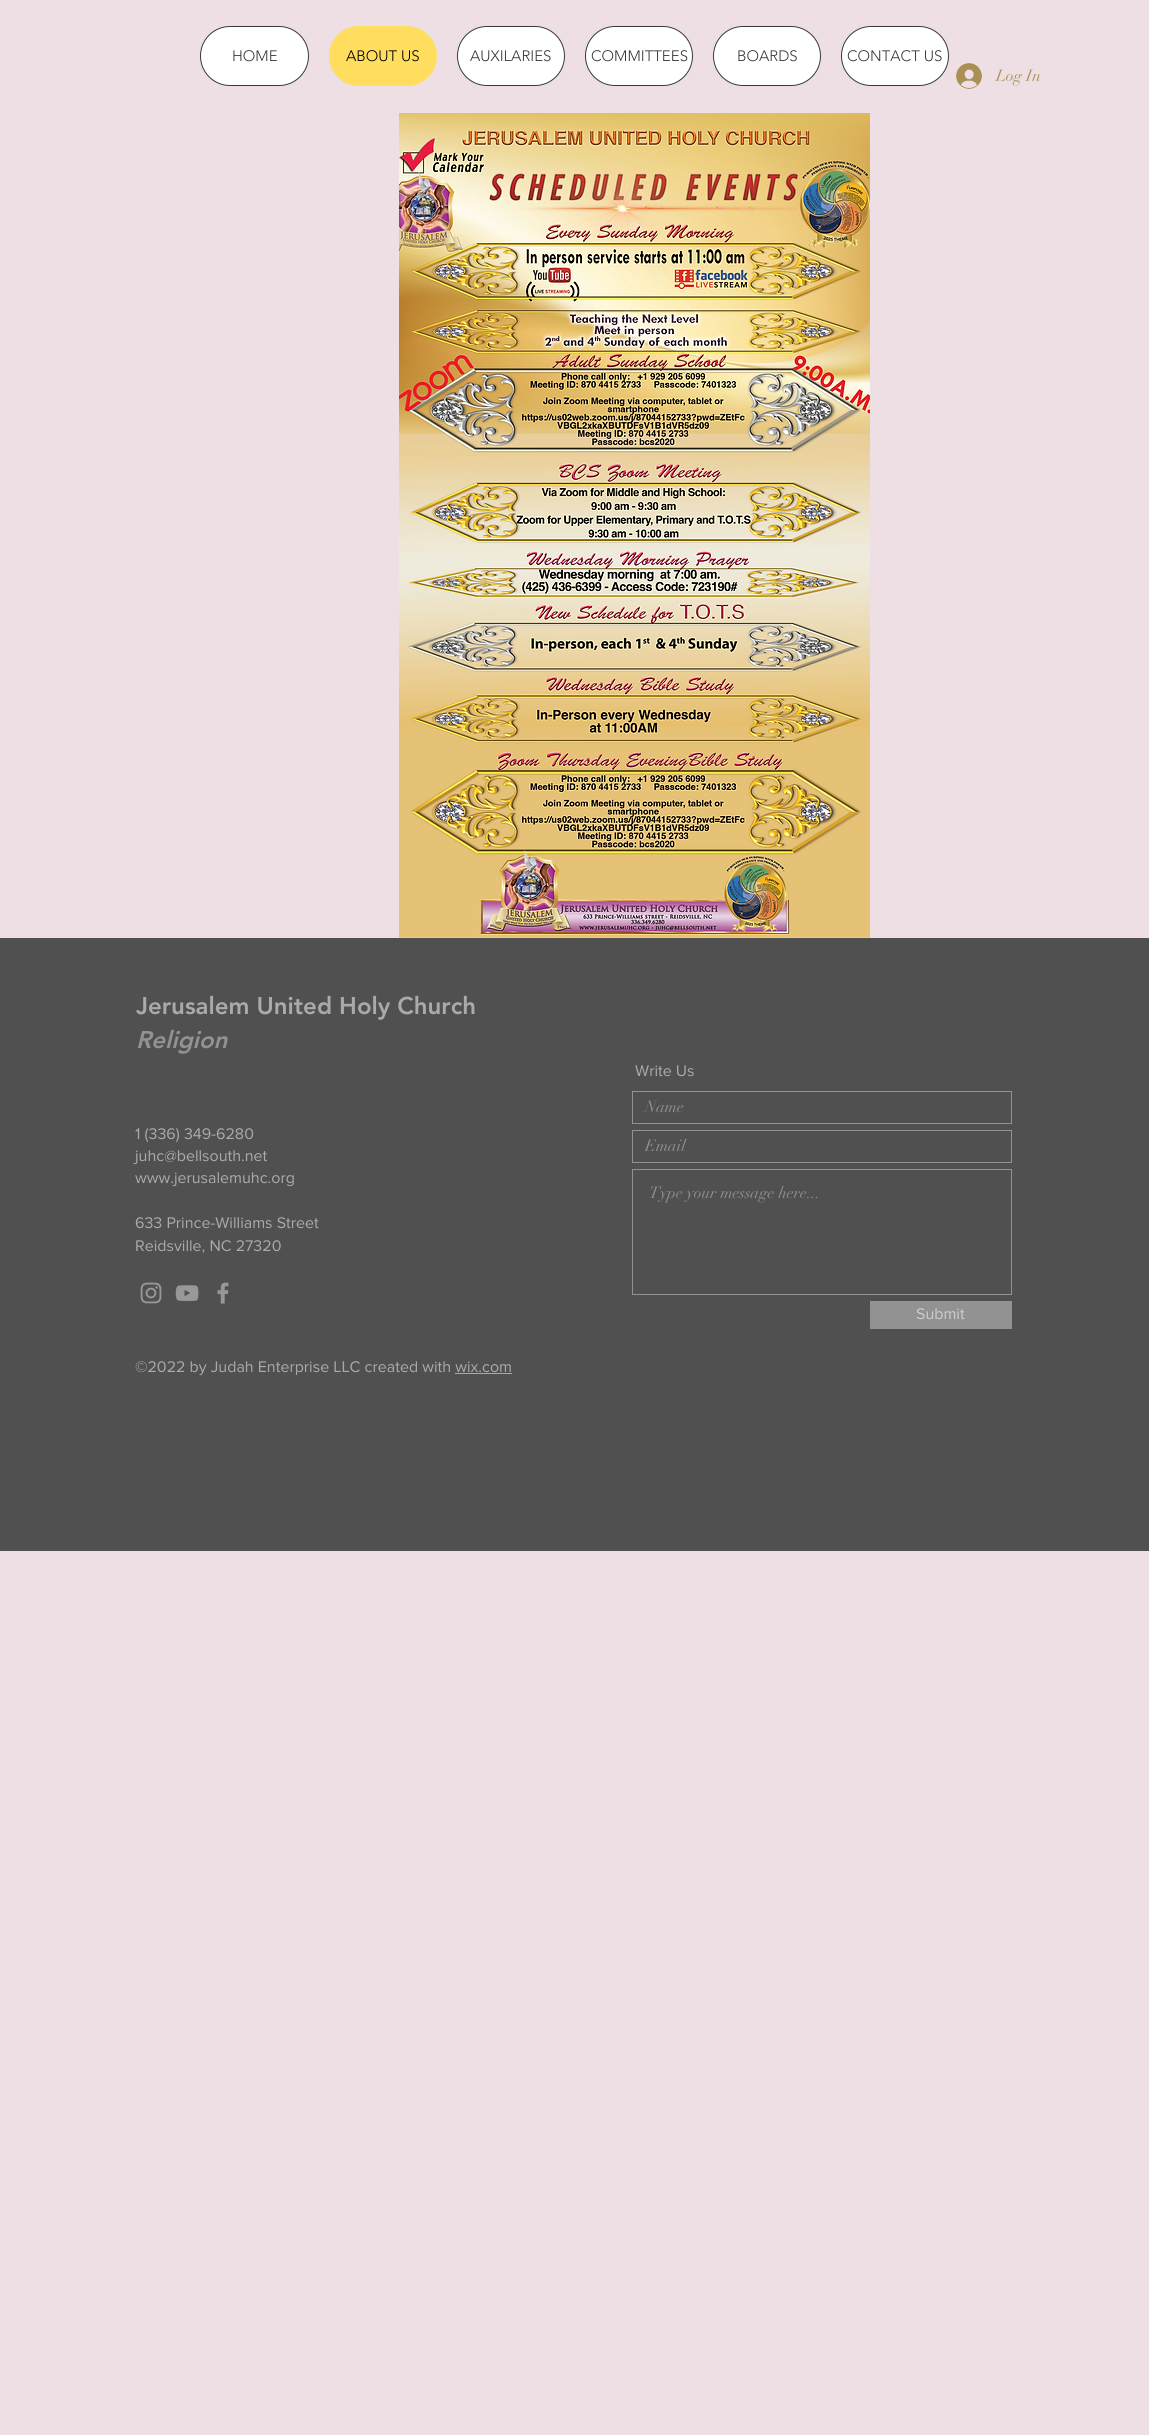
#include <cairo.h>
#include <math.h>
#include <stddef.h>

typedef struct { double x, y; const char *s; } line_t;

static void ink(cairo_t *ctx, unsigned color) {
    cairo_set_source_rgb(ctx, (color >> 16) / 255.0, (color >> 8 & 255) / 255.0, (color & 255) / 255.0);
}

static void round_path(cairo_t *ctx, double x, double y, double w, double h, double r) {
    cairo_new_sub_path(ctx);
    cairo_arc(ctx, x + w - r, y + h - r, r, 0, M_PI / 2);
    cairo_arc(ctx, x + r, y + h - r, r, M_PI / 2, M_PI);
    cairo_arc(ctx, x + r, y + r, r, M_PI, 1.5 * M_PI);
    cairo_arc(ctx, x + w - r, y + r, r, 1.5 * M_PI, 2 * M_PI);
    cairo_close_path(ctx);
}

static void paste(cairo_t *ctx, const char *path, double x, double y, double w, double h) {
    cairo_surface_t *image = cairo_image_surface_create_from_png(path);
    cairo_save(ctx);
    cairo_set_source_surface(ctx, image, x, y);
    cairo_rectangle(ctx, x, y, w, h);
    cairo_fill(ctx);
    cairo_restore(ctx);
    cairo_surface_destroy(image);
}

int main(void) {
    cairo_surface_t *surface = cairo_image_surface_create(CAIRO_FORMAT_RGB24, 1149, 2435);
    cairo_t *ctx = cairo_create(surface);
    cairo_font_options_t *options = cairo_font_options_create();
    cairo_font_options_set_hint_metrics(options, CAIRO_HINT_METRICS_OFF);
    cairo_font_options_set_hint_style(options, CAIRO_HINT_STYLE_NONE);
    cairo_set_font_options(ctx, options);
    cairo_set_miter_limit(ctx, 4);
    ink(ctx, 0xEDDFE4);
    cairo_paint(ctx);
    ink(ctx, 0xFFFFFF);
    round_path(ctx, 200.5, 26.5, 108, 59, 29.5);
    cairo_fill_preserve(ctx);
    ink(ctx, 0x383838);
    cairo_set_line_width(ctx, 1);
    cairo_stroke(ctx);
    cairo_select_font_face(ctx, "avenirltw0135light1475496 Light", CAIRO_FONT_SLANT_NORMAL, CAIRO_FONT_WEIGHT_NORMAL);
    cairo_set_font_size(ctx, 15);
    cairo_move_to(ctx, 232, 61);
    cairo_show_text(ctx, "HOME");
    ink(ctx, 0xFFDE5F);
    round_path(ctx, 329, 26, 108, 60, 30);
    cairo_fill(ctx);
    ink(ctx, 0x000000);
    cairo_move_to(ctx, 346, 61);
    cairo_show_text(ctx, "ABOUT US");
    ink(ctx, 0xFFFFFF);
    round_path(ctx, 457.5, 26.5, 107, 59, 29.5);
    cairo_fill_preserve(ctx);
    ink(ctx, 0x383838);
    cairo_stroke(ctx);
    cairo_move_to(ctx, 470, 61);
    cairo_show_text(ctx, "AUXILARIES");
    ink(ctx, 0xFFFFFF);
    round_path(ctx, 585.5, 26.5, 107, 59, 29.5);
    cairo_fill_preserve(ctx);
    ink(ctx, 0x383838);
    cairo_stroke(ctx);
    cairo_move_to(ctx, 591, 61);
    cairo_show_text(ctx, "COMMITTEES");
    ink(ctx, 0xFFFFFF);
    round_path(ctx, 713.5, 26.5, 107, 59, 29.5);
    cairo_fill_preserve(ctx);
    ink(ctx, 0x383838);
    cairo_stroke(ctx);
    cairo_move_to(ctx, 737, 61);
    cairo_show_text(ctx, "BOARDS");
    ink(ctx, 0xFFFFFF);
    round_path(ctx, 841.5, 26.5, 107, 59, 29.5);
    cairo_fill_preserve(ctx);
    ink(ctx, 0x383838);
    cairo_stroke(ctx);
    cairo_move_to(ctx, 847, 61);
    cairo_show_text(ctx, "CONTACT US");
    paste(ctx, "media/1.png", 956, 63, 26, 26);
    cairo_select_font_face(ctx, "didot", CAIRO_FONT_SLANT_NORMAL, CAIRO_FONT_WEIGHT_NORMAL);
    cairo_set_font_size(ctx, 16);
    ink(ctx, 0xAA9055);
    cairo_move_to(ctx, 996, 81);
    cairo_show_text(ctx, "Log In");
    paste(ctx, "media/2.png", 399, 113, 471, 825);
    ink(ctx, 0x505050);
    cairo_rectangle(ctx, 0, 938, 1149, 613);
    cairo_fill(ctx);
    cairo_select_font_face(ctx, "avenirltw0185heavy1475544 Black", CAIRO_FONT_SLANT_NORMAL, CAIRO_FONT_WEIGHT_NORMAL);
    cairo_set_font_size(ctx, 24);
    ink(ctx, 0xA8AAAB);
    cairo_move_to(ctx, 136, 1014);
    cairo_show_text(ctx, "Jerusalem United Holy Church");
    cairo_select_font_face(ctx, "avenirltw0185heavy1475544 Black", CAIRO_FONT_SLANT_ITALIC, CAIRO_FONT_WEIGHT_NORMAL);
    ink(ctx, 0x929292);
    cairo_move_to(ctx, 136, 1048);
    cairo_show_text(ctx, "Religion");
    cairo_select_font_face(ctx, "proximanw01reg", CAIRO_FONT_SLANT_NORMAL, CAIRO_FONT_WEIGHT_NORMAL);
    cairo_set_font_size(ctx, 16);
    ink(ctx, 0xA8AAAB);
    {
        static const line_t items[] = {
            {635, 1076, "Write Us"},
            {135, 1139, "1 (336) 349-6280"},
            {135, 1161, "juhc@bellsouth.net"},
            {135, 1183, "www.jerusalemuhc.org"},
            {135, 1228, "633 Prince-Williams Street"},
            {135, 1251, "Reidsville, NC 27320"},
        };
        for (size_t i = 0; i < sizeof items / sizeof *items; i++) {
            cairo_move_to(ctx, items[i].x, items[i].y);
            cairo_show_text(ctx, items[i].s);
        }
    }
    cairo_rectangle(ctx, 632.5, 1091.5, 379, 32);
    ink(ctx, 0x929292);
    cairo_stroke(ctx);
    cairo_select_font_face(ctx, "didot", CAIRO_FONT_SLANT_NORMAL, CAIRO_FONT_WEIGHT_NORMAL);
    cairo_move_to(ctx, 645, 1112);
    cairo_show_text(ctx, "Name");
    cairo_rectangle(ctx, 632.5, 1130.5, 379, 32);
    cairo_stroke(ctx);
    cairo_move_to(ctx, 645, 1151);
    cairo_show_text(ctx, "Email");
    cairo_rectangle(ctx, 632.5, 1169.5, 379, 125);
    cairo_stroke(ctx);
    cairo_move_to(ctx, 649, 1198);
    cairo_show_text(ctx, "Type your message here...");
    cairo_rectangle(ctx, 870, 1301, 142, 28);
    cairo_fill(ctx);
    cairo_select_font_face(ctx, "proximanw01reg", CAIRO_FONT_SLANT_NORMAL, CAIRO_FONT_WEIGHT_NORMAL);
    ink(ctx, 0xCFCCCC);
    cairo_move_to(ctx, 916, 1319);
    cairo_show_text(ctx, "Submit");
    paste(ctx, "media/3.png", 140, 1282, 22, 22);
    paste(ctx, "media/4.png", 175, 1285, 24, 17);
    paste(ctx, "media/5.png", 217, 1282, 12, 22);
    ink(ctx, 0xA8AAAB);
    cairo_move_to(ctx, 135, 1372);
    cairo_show_text(ctx, "©2022 by Judah Enterprise LLC created with wix.com");
    cairo_rectangle(ctx, 455, 1373, 57, 1);
    cairo_fill(ctx);
    cairo_surface_write_to_png(surface, "image.png");
    cairo_font_options_destroy(options);
    cairo_destroy(ctx);
    cairo_surface_destroy(surface);
    return 0;
}
